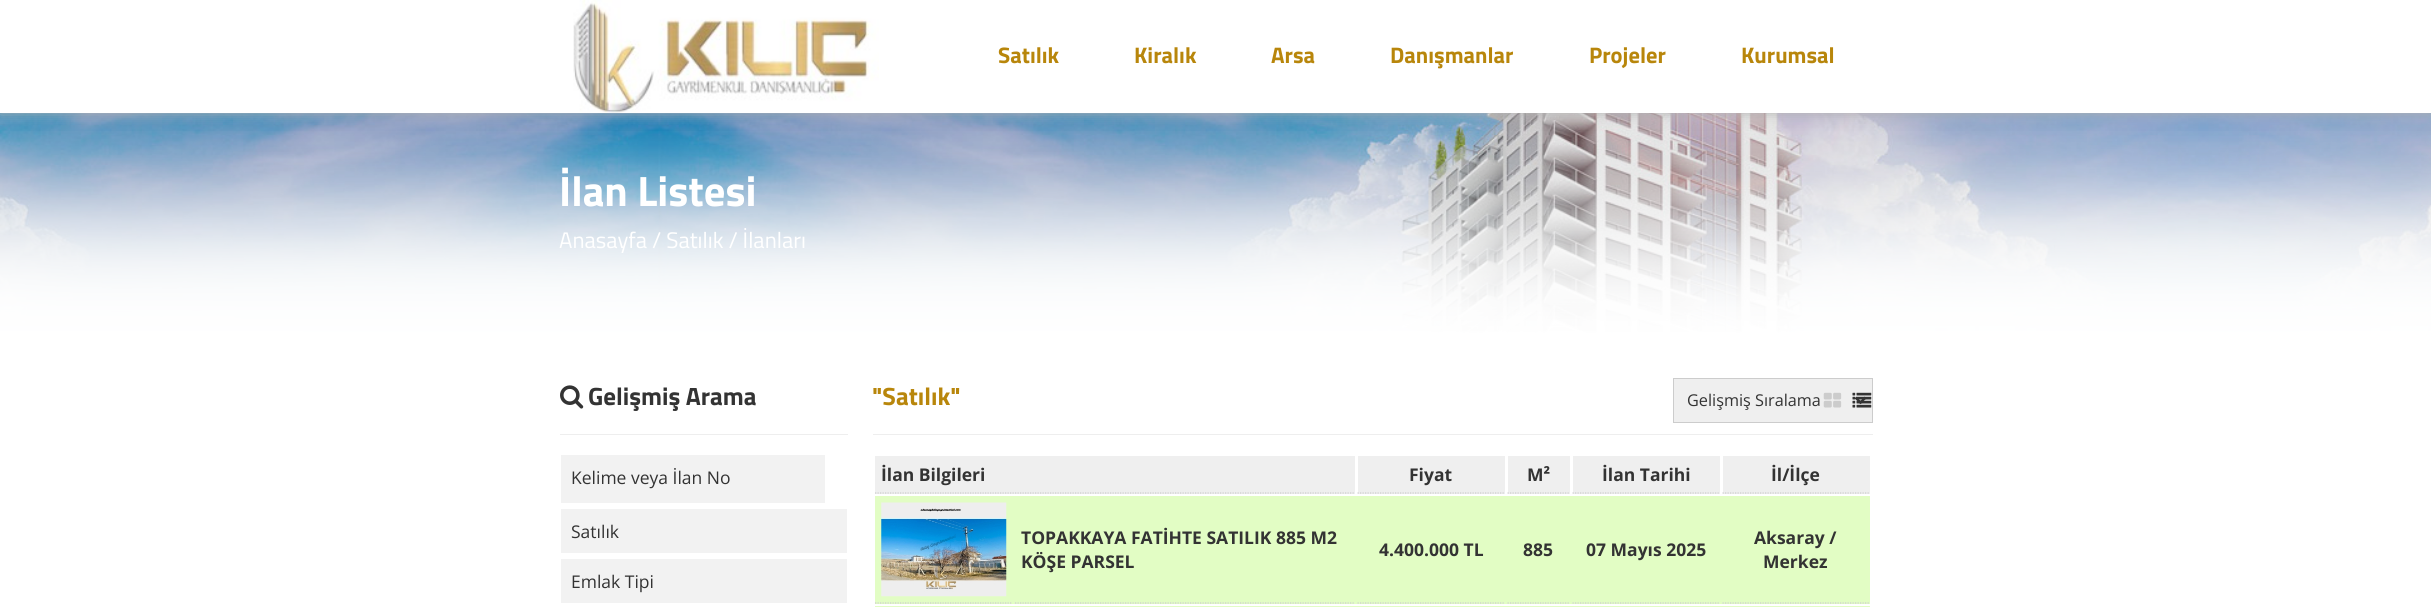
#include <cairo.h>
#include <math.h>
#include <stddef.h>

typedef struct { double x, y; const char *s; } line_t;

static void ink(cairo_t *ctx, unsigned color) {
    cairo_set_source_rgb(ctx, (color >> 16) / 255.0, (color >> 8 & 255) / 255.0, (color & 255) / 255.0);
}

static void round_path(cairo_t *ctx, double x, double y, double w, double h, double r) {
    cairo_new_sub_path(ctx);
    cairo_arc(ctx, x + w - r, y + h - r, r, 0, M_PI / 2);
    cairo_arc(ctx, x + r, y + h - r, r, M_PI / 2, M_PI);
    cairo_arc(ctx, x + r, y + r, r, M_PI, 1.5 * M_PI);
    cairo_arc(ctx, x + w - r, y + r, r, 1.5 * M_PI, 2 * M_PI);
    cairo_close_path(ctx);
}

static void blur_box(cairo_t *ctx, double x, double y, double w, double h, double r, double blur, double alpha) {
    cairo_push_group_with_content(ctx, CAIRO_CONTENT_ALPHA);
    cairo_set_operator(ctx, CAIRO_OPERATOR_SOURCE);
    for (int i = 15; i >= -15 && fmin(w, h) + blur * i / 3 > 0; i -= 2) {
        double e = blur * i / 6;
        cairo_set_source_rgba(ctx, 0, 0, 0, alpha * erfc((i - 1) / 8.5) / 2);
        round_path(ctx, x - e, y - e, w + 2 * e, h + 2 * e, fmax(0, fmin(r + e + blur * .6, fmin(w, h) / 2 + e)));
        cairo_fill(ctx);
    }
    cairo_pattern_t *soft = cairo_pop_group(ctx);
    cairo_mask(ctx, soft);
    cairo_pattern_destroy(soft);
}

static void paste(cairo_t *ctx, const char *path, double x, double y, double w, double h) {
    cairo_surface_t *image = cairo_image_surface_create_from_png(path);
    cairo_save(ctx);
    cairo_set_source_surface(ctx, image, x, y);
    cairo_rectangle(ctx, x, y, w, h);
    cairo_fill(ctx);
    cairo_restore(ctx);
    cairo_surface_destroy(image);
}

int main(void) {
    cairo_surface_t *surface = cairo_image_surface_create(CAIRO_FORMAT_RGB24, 2431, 607);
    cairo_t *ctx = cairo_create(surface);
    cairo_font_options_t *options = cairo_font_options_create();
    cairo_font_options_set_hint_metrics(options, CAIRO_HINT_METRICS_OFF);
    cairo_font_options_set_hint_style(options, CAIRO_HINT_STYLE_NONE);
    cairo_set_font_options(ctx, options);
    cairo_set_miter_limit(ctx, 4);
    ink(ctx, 0xFFFFFF);
    cairo_paint(ctx);
    paste(ctx, "media/2.png", 0, 113, 2431, 220);
    paste(ctx, "media/3.png", 0, 131, 2431, 202);
    ink(ctx, 0xB1B1B1);
    blur_box(ctx, 0, 0, 2431, 113, 0, 6, 1);
    ink(ctx, 0xFFFFFF);
    cairo_rectangle(ctx, 0, 0, 2431, 113);
    cairo_fill(ctx);
    paste(ctx, "media/1.png", 573, 0, 306, 113);
    cairo_select_font_face(ctx, "Titillium Web", CAIRO_FONT_SLANT_NORMAL, CAIRO_FONT_WEIGHT_BOLD);
    cairo_set_font_size(ctx, 22.5);
    ink(ctx, 0xB8860B);
    {
        static const line_t items[] = {
            {998, 63, "Satılık"},
            {1134, 63, "Kiralık"},
            {1271, 63, "Arsa"},
            {1390, 63, "Danışmanlar"},
            {1589, 63, "Projeler"},
            {1741, 63, "Kurumsal"},
        };
        for (size_t i = 0; i < sizeof items / sizeof *items; i++) {
            cairo_move_to(ctx, items[i].x, items[i].y);
            cairo_show_text(ctx, items[i].s);
        }
    }
    cairo_set_font_size(ctx, 42.5);
    ink(ctx, 0xFFFFFF);
    cairo_move_to(ctx, 559, 206);
    cairo_show_text(ctx, "İlan Listesi");
    cairo_select_font_face(ctx, "Titillium Web", CAIRO_FONT_SLANT_NORMAL, CAIRO_FONT_WEIGHT_NORMAL);
    cairo_set_font_size(ctx, 22.5);
    cairo_move_to(ctx, 559, 248);
    cairo_show_text(ctx, "Anasayfa / Satılık / İlanları");
    ink(ctx, 0xEEEEEE);
    cairo_rectangle(ctx, 560, 434, 288, 1);
    cairo_fill(ctx);
    paste(ctx, "media/4.png", 560, 385, 24, 24);
    cairo_select_font_face(ctx, "Titillium Web", CAIRO_FONT_SLANT_NORMAL, CAIRO_FONT_WEIGHT_BOLD);
    cairo_set_font_size(ctx, 25);
    ink(ctx, 0x333333);
    cairo_move_to(ctx, 588, 405);
    cairo_show_text(ctx, "Gelişmiş Arama");
    ink(ctx, 0xF2F2F2);
    cairo_rectangle(ctx, 561, 455, 264, 48);
    cairo_fill(ctx);
    cairo_select_font_face(ctx, "Open Sans", CAIRO_FONT_SLANT_NORMAL, CAIRO_FONT_WEIGHT_NORMAL);
    cairo_set_font_size(ctx, 17.5);
    ink(ctx, 0x333333);
    cairo_move_to(ctx, 571, 484);
    cairo_show_text(ctx, "Kelime veya İlan No");
    ink(ctx, 0xF2F2F2);
    cairo_rectangle(ctx, 561, 509, 286, 44);
    cairo_fill(ctx);
    ink(ctx, 0x333333);
    cairo_move_to(ctx, 571, 538);
    cairo_show_text(ctx, "Satılık");
    ink(ctx, 0xF2F2F2);
    cairo_rectangle(ctx, 561, 559, 286, 44);
    cairo_fill(ctx);
    ink(ctx, 0x333333);
    cairo_move_to(ctx, 571, 588);
    cairo_show_text(ctx, "Emlak Tipi");
    ink(ctx, 0xEEEEEE);
    cairo_rectangle(ctx, 873, 434, 1000, 1);
    cairo_fill(ctx);
    cairo_select_font_face(ctx, "Titillium Web", CAIRO_FONT_SLANT_NORMAL, CAIRO_FONT_WEIGHT_BOLD);
    cairo_set_font_size(ctx, 25);
    ink(ctx, 0xB8860B);
    cairo_move_to(ctx, 872, 405);
    cairo_show_text(ctx, "\"Satılık\"");
    ink(ctx, 0xEFEFEF);
    cairo_rectangle(ctx, 1673.5, 378.5, 199, 44);
    cairo_fill_preserve(ctx);
    ink(ctx, 0xCCCCCC);
    cairo_set_line_width(ctx, 1);
    cairo_stroke(ctx);
    cairo_new_path(ctx);
    cairo_move_to(ctx, 1855.5, 397.5);
    cairo_line_to(ctx, 1860.5, 402.5);
    cairo_line_to(ctx, 1865.5, 397.5);
    ink(ctx, 0x333333);
    cairo_set_line_width(ctx, 2.5);
    cairo_stroke(ctx);
    cairo_select_font_face(ctx, "Open Sans", CAIRO_FONT_SLANT_NORMAL, CAIRO_FONT_WEIGHT_NORMAL);
    cairo_set_font_size(ctx, 16.25);
    cairo_move_to(ctx, 1687, 406);
    cairo_show_text(ctx, "Gelişmiş Sıralama");
    paste(ctx, "media/5.png", 1823, 392, 19, 16);
    paste(ctx, "media/6.png", 1852, 392, 20, 16);
    ink(ctx, 0xEFEFEF);
    cairo_rectangle(ctx, 875, 456, 480, 38);
    cairo_fill(ctx);
    cairo_new_path(ctx);
    cairo_move_to(ctx, 875, 493);
    cairo_line_to(ctx, 1355, 493);
    ink(ctx, 0xCCCCCC);
    cairo_set_line_width(ctx, 1.2);
    cairo_set_dash(ctx, (double[]){1.25, 1.25}, 2, 0);
    cairo_stroke(ctx);
    cairo_select_font_face(ctx, "Open Sans", CAIRO_FONT_SLANT_NORMAL, CAIRO_FONT_WEIGHT_BOLD);
    cairo_set_font_size(ctx, 17.5);
    ink(ctx, 0x333333);
    cairo_move_to(ctx, 881, 481);
    cairo_show_text(ctx, "İlan Bilgileri");
    ink(ctx, 0xEFEFEF);
    cairo_rectangle(ctx, 1358, 456, 147, 38);
    cairo_fill(ctx);
    cairo_new_path(ctx);
    cairo_move_to(ctx, 1357.5, 493);
    cairo_line_to(ctx, 1505, 493);
    ink(ctx, 0xCCCCCC);
    cairo_stroke(ctx);
    ink(ctx, 0x333333);
    cairo_move_to(ctx, 1409, 481);
    cairo_show_text(ctx, "Fiyat");
    ink(ctx, 0xEFEFEF);
    cairo_rectangle(ctx, 1508, 456, 62, 38);
    cairo_fill(ctx);
    cairo_new_path(ctx);
    cairo_move_to(ctx, 1507.5, 493);
    cairo_line_to(ctx, 1570, 493);
    ink(ctx, 0xCCCCCC);
    cairo_stroke(ctx);
    ink(ctx, 0x333333);
    cairo_move_to(ctx, 1527, 481);
    cairo_show_text(ctx, "M²");
    ink(ctx, 0xEFEFEF);
    cairo_rectangle(ctx, 1573, 456, 147, 38);
    cairo_fill(ctx);
    cairo_new_path(ctx);
    cairo_move_to(ctx, 1572.5, 493);
    cairo_line_to(ctx, 1720, 493);
    ink(ctx, 0xCCCCCC);
    cairo_stroke(ctx);
    ink(ctx, 0x333333);
    cairo_move_to(ctx, 1602, 481);
    cairo_show_text(ctx, "İlan Tarihi");
    ink(ctx, 0xEFEFEF);
    cairo_rectangle(ctx, 1723, 456, 147, 38);
    cairo_fill(ctx);
    cairo_new_path(ctx);
    cairo_move_to(ctx, 1722.5, 493);
    cairo_line_to(ctx, 1870, 493);
    ink(ctx, 0xCCCCCC);
    cairo_stroke(ctx);
    ink(ctx, 0x333333);
    cairo_move_to(ctx, 1771, 481);
    cairo_show_text(ctx, "İl/İlçe");
    ink(ctx, 0xE2FDC4);
    cairo_rectangle(ctx, 875, 496, 995, 108);
    cairo_fill(ctx);
    cairo_new_path(ctx);
    cairo_move_to(ctx, 875, 603);
    cairo_line_to(ctx, 1012.5, 603);
    ink(ctx, 0xCCCCCC);
    cairo_stroke(ctx);
    paste(ctx, "media/7.png", 881, 502, 126, 95);
    cairo_new_path(ctx);
    cairo_move_to(ctx, 1015, 603);
    cairo_line_to(ctx, 1355, 603);
    cairo_stroke(ctx);
    ink(ctx, 0x333333);
    cairo_move_to(ctx, 1021, 544);
    cairo_show_text(ctx, "TOPAKKAYA FATİHTE SATILIK 885 M2");
    cairo_move_to(ctx, 1021, 568);
    cairo_show_text(ctx, "KÖŞE PARSEL");
    cairo_new_path(ctx);
    cairo_move_to(ctx, 1357.5, 603);
    cairo_line_to(ctx, 1505, 603);
    ink(ctx, 0xCCCCCC);
    cairo_stroke(ctx);
    ink(ctx, 0x333333);
    cairo_move_to(ctx, 1379, 556);
    cairo_show_text(ctx, "4.400.000 TL");
    cairo_new_path(ctx);
    cairo_move_to(ctx, 1507.5, 603);
    cairo_line_to(ctx, 1570, 603);
    ink(ctx, 0xCCCCCC);
    cairo_stroke(ctx);
    ink(ctx, 0x333333);
    cairo_move_to(ctx, 1523, 556);
    cairo_show_text(ctx, "885");
    cairo_new_path(ctx);
    cairo_move_to(ctx, 1572.5, 603);
    cairo_line_to(ctx, 1720, 603);
    ink(ctx, 0xCCCCCC);
    cairo_stroke(ctx);
    ink(ctx, 0x333333);
    cairo_move_to(ctx, 1586, 556);
    cairo_show_text(ctx, "07 Mayıs 2025");
    cairo_new_path(ctx);
    cairo_move_to(ctx, 1722.5, 603);
    cairo_line_to(ctx, 1870, 603);
    ink(ctx, 0xCCCCCC);
    cairo_stroke(ctx);
    ink(ctx, 0x333333);
    cairo_move_to(ctx, 1754, 544);
    cairo_show_text(ctx, "Aksaray /");
    cairo_move_to(ctx, 1763, 568);
    cairo_show_text(ctx, "Merkez");
    ink(ctx, 0xE2FDC4);
    cairo_rectangle(ctx, 875, 606, 995, 1);
    cairo_fill(ctx);
    cairo_surface_write_to_png(surface, "image.png");
    cairo_font_options_destroy(options);
    cairo_destroy(ctx);
    cairo_surface_destroy(surface);
    return 0;
}
